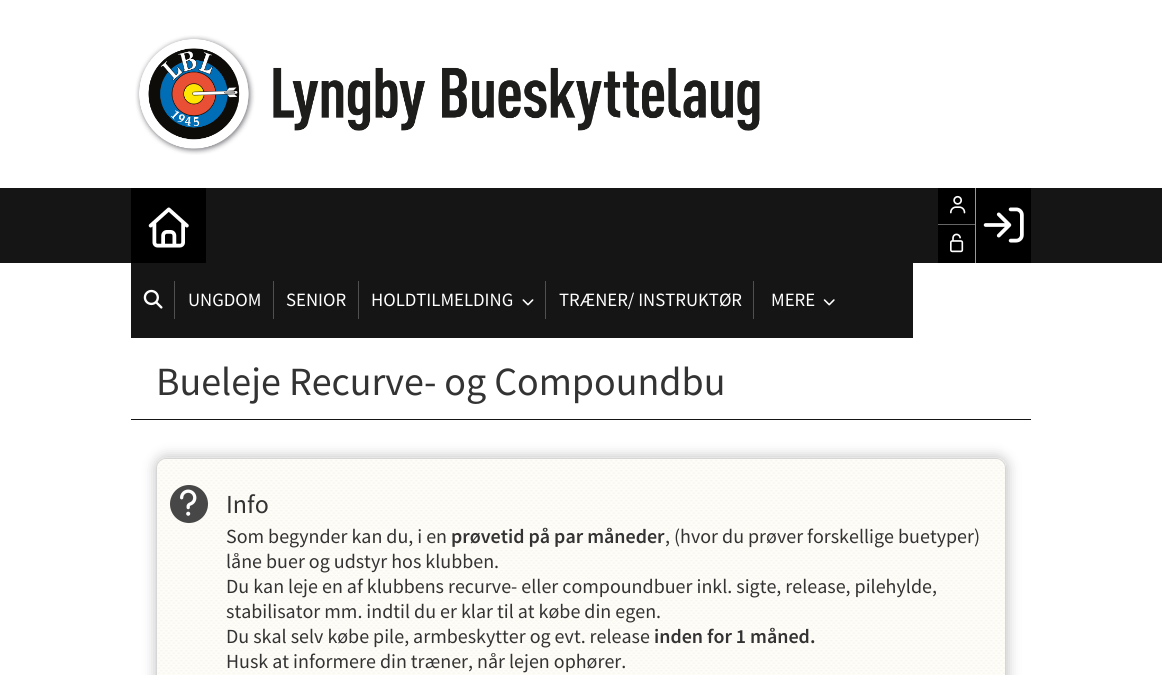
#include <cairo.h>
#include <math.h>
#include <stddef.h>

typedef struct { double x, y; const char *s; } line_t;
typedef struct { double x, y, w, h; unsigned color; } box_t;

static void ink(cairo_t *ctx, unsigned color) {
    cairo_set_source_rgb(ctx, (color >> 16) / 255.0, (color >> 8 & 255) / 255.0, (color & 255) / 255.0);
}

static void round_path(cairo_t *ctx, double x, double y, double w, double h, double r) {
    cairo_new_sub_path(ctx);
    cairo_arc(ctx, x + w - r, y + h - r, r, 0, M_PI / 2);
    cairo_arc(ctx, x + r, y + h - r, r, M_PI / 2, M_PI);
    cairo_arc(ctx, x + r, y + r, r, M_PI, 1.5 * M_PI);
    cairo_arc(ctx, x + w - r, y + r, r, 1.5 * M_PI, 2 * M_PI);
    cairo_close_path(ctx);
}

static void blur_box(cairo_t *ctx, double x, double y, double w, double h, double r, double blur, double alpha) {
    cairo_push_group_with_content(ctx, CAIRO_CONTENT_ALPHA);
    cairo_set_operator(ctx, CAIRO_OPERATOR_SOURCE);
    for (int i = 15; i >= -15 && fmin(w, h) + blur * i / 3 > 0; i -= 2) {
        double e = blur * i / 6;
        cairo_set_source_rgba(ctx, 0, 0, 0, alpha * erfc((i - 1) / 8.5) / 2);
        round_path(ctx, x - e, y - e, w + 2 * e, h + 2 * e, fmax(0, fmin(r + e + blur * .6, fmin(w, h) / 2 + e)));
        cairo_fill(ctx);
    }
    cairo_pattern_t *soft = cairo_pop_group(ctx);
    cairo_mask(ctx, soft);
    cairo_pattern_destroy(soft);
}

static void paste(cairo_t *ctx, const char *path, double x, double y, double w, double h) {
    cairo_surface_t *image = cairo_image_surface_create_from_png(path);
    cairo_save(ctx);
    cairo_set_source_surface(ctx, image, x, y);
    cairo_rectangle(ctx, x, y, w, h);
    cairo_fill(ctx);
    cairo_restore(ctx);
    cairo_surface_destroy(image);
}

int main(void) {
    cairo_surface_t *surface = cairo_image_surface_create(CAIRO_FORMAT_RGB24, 1162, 675);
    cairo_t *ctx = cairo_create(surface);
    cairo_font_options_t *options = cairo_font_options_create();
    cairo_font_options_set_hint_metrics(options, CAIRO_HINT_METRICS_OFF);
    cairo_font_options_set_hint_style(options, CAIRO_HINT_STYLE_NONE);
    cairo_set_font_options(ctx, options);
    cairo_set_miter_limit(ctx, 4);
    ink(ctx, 0xFFFFFF);
    cairo_paint(ctx);
    paste(ctx, "media/1.png", 135, 35, 625, 120);
    {
        static const box_t items[] = {
            {0, 188, 1162, 75, 0x151515},
            {938, 188, 37, 36, 0x000000},
            {938, 224, 37, 1, 0x666666},
        };
        for (size_t i = 0; i < sizeof items / sizeof *items; i++) {
            ink(ctx, items[i].color);
            cairo_rectangle(ctx, items[i].x, items[i].y, items[i].w, items[i].h);
            cairo_fill(ctx);
        }
    }
    paste(ctx, "media/2.png", 950, 195, 16, 19);
    ink(ctx, 0x000000);
    cairo_rectangle(ctx, 938, 225, 37, 38);
    cairo_fill(ctx);
    paste(ctx, "media/3.png", 950, 233, 14, 20);
    cairo_rectangle(ctx, 976, 188, 55, 75);
    cairo_fill(ctx);
    ink(ctx, 0x999999);
    cairo_rectangle(ctx, 975, 188, 1, 75);
    cairo_fill(ctx);
    paste(ctx, "media/4.png", 983, 207, 41, 36);
    ink(ctx, 0x151515);
    cairo_rectangle(ctx, 131, 263, 782, 75);
    cairo_fill(ctx);
    ink(ctx, 0x000000);
    cairo_rectangle(ctx, 131, 188, 75, 75);
    cairo_fill(ctx);
    paste(ctx, "media/5.png", 148, 207, 41, 41);
    paste(ctx, "media/6.png", 143, 289, 20, 20);
    ink(ctx, 0x505050);
    cairo_rectangle(ctx, 174, 281, 1, 38);
    cairo_fill(ctx);
    cairo_select_font_face(ctx, "Source Sans Pro", CAIRO_FONT_SLANT_NORMAL, CAIRO_FONT_WEIGHT_NORMAL);
    cairo_set_font_size(ctx, 18.75);
    ink(ctx, 0xFFFFFF);
    cairo_move_to(ctx, 188, 306);
    cairo_show_text(ctx, "UNGDOM");
    ink(ctx, 0x505050);
    cairo_rectangle(ctx, 273, 281, 1, 38);
    cairo_fill(ctx);
    ink(ctx, 0xFFFFFF);
    cairo_move_to(ctx, 286, 306);
    cairo_show_text(ctx, "SENIOR");
    ink(ctx, 0x505050);
    cairo_rectangle(ctx, 358, 281, 1, 38);
    cairo_fill(ctx);
    ink(ctx, 0xFFFFFF);
    cairo_move_to(ctx, 371, 306);
    cairo_show_text(ctx, "HOLDTILMELDING");
    paste(ctx, "media/7.png", 522, 299, 12, 7);
    ink(ctx, 0x505050);
    cairo_rectangle(ctx, 545, 281, 1, 38);
    cairo_fill(ctx);
    ink(ctx, 0xFFFFFF);
    cairo_move_to(ctx, 559, 306);
    cairo_show_text(ctx, "TRÆNER/ INSTRUKTØR");
    ink(ctx, 0x505050);
    cairo_rectangle(ctx, 753, 281, 1, 38);
    cairo_fill(ctx);
    ink(ctx, 0xFFFFFF);
    cairo_move_to(ctx, 771, 306);
    cairo_show_text(ctx, "MERE");
    paste(ctx, "media/8.png", 823, 299, 12, 7);
    cairo_set_font_size(ctx, 40);
    ink(ctx, 0x333333);
    cairo_move_to(ctx, 156, 395);
    cairo_show_text(ctx, "Bueleje Recurve- og Compoundbu");
    ink(ctx, 0x151515);
    cairo_rectangle(ctx, 131, 419, 900, 1);
    cairo_fill(ctx);
    ink(ctx, 0x000000);
    blur_box(ctx, 154, 455, 855, 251, 13, 6, 0.2);
    paste(ctx, "media/9.png", 156, 457, 850, 218);
    round_path(ctx, 156.5, 458.5, 849, 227, 9.5);
    ink(ctx, 0xD6D6D6);
    cairo_set_line_width(ctx, 1);
    cairo_stroke(ctx);
    ink(ctx, 0x474747);
    cairo_arc(ctx, 189, 504, 19, 0, 2 * M_PI);
    cairo_fill(ctx);
    paste(ctx, "media/10.png", 180, 489, 17, 27);
    cairo_set_font_size(ctx, 26);
    ink(ctx, 0x333333);
    cairo_move_to(ctx, 226, 513);
    cairo_show_text(ctx, "Info");
    cairo_set_font_size(ctx, 20);
    cairo_move_to(ctx, 226, 543);
    cairo_show_text(ctx, "Som begynder kan du, i en");
    cairo_select_font_face(ctx, "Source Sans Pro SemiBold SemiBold", CAIRO_FONT_SLANT_NORMAL, CAIRO_FONT_WEIGHT_NORMAL);
    cairo_move_to(ctx, 451, 543);
    cairo_show_text(ctx, "prøvetid på par måneder");
    cairo_select_font_face(ctx, "Source Sans Pro", CAIRO_FONT_SLANT_NORMAL, CAIRO_FONT_WEIGHT_NORMAL);
    {
        static const line_t items[] = {
            {665, 543, ", (hvor du prøver forskellige buetyper)"},
            {226, 568, "låne buer og udstyr hos klubben."},
            {226, 593, "Du kan leje en af klubbens recurve- eller compoundbuer inkl. sigte, release, pilehylde,"},
            {226, 618, "stabilisator mm. indtil du er klar til at købe din egen."},
            {226, 643, "Du skal selv købe pile, armbeskytter og evt. release"},
        };
        for (size_t i = 0; i < sizeof items / sizeof *items; i++) {
            cairo_move_to(ctx, items[i].x, items[i].y);
            cairo_show_text(ctx, items[i].s);
        }
    }
    cairo_select_font_face(ctx, "Source Sans Pro SemiBold SemiBold", CAIRO_FONT_SLANT_NORMAL, CAIRO_FONT_WEIGHT_NORMAL);
    cairo_move_to(ctx, 654, 643);
    cairo_show_text(ctx, "inden for 1 måned.");
    cairo_select_font_face(ctx, "Source Sans Pro", CAIRO_FONT_SLANT_NORMAL, CAIRO_FONT_WEIGHT_NORMAL);
    cairo_move_to(ctx, 226, 668);
    cairo_show_text(ctx, "Husk at informere din træner, når lejen ophører.");
    cairo_surface_write_to_png(surface, "image.png");
    cairo_font_options_destroy(options);
    cairo_destroy(ctx);
    cairo_surface_destroy(surface);
    return 0;
}
